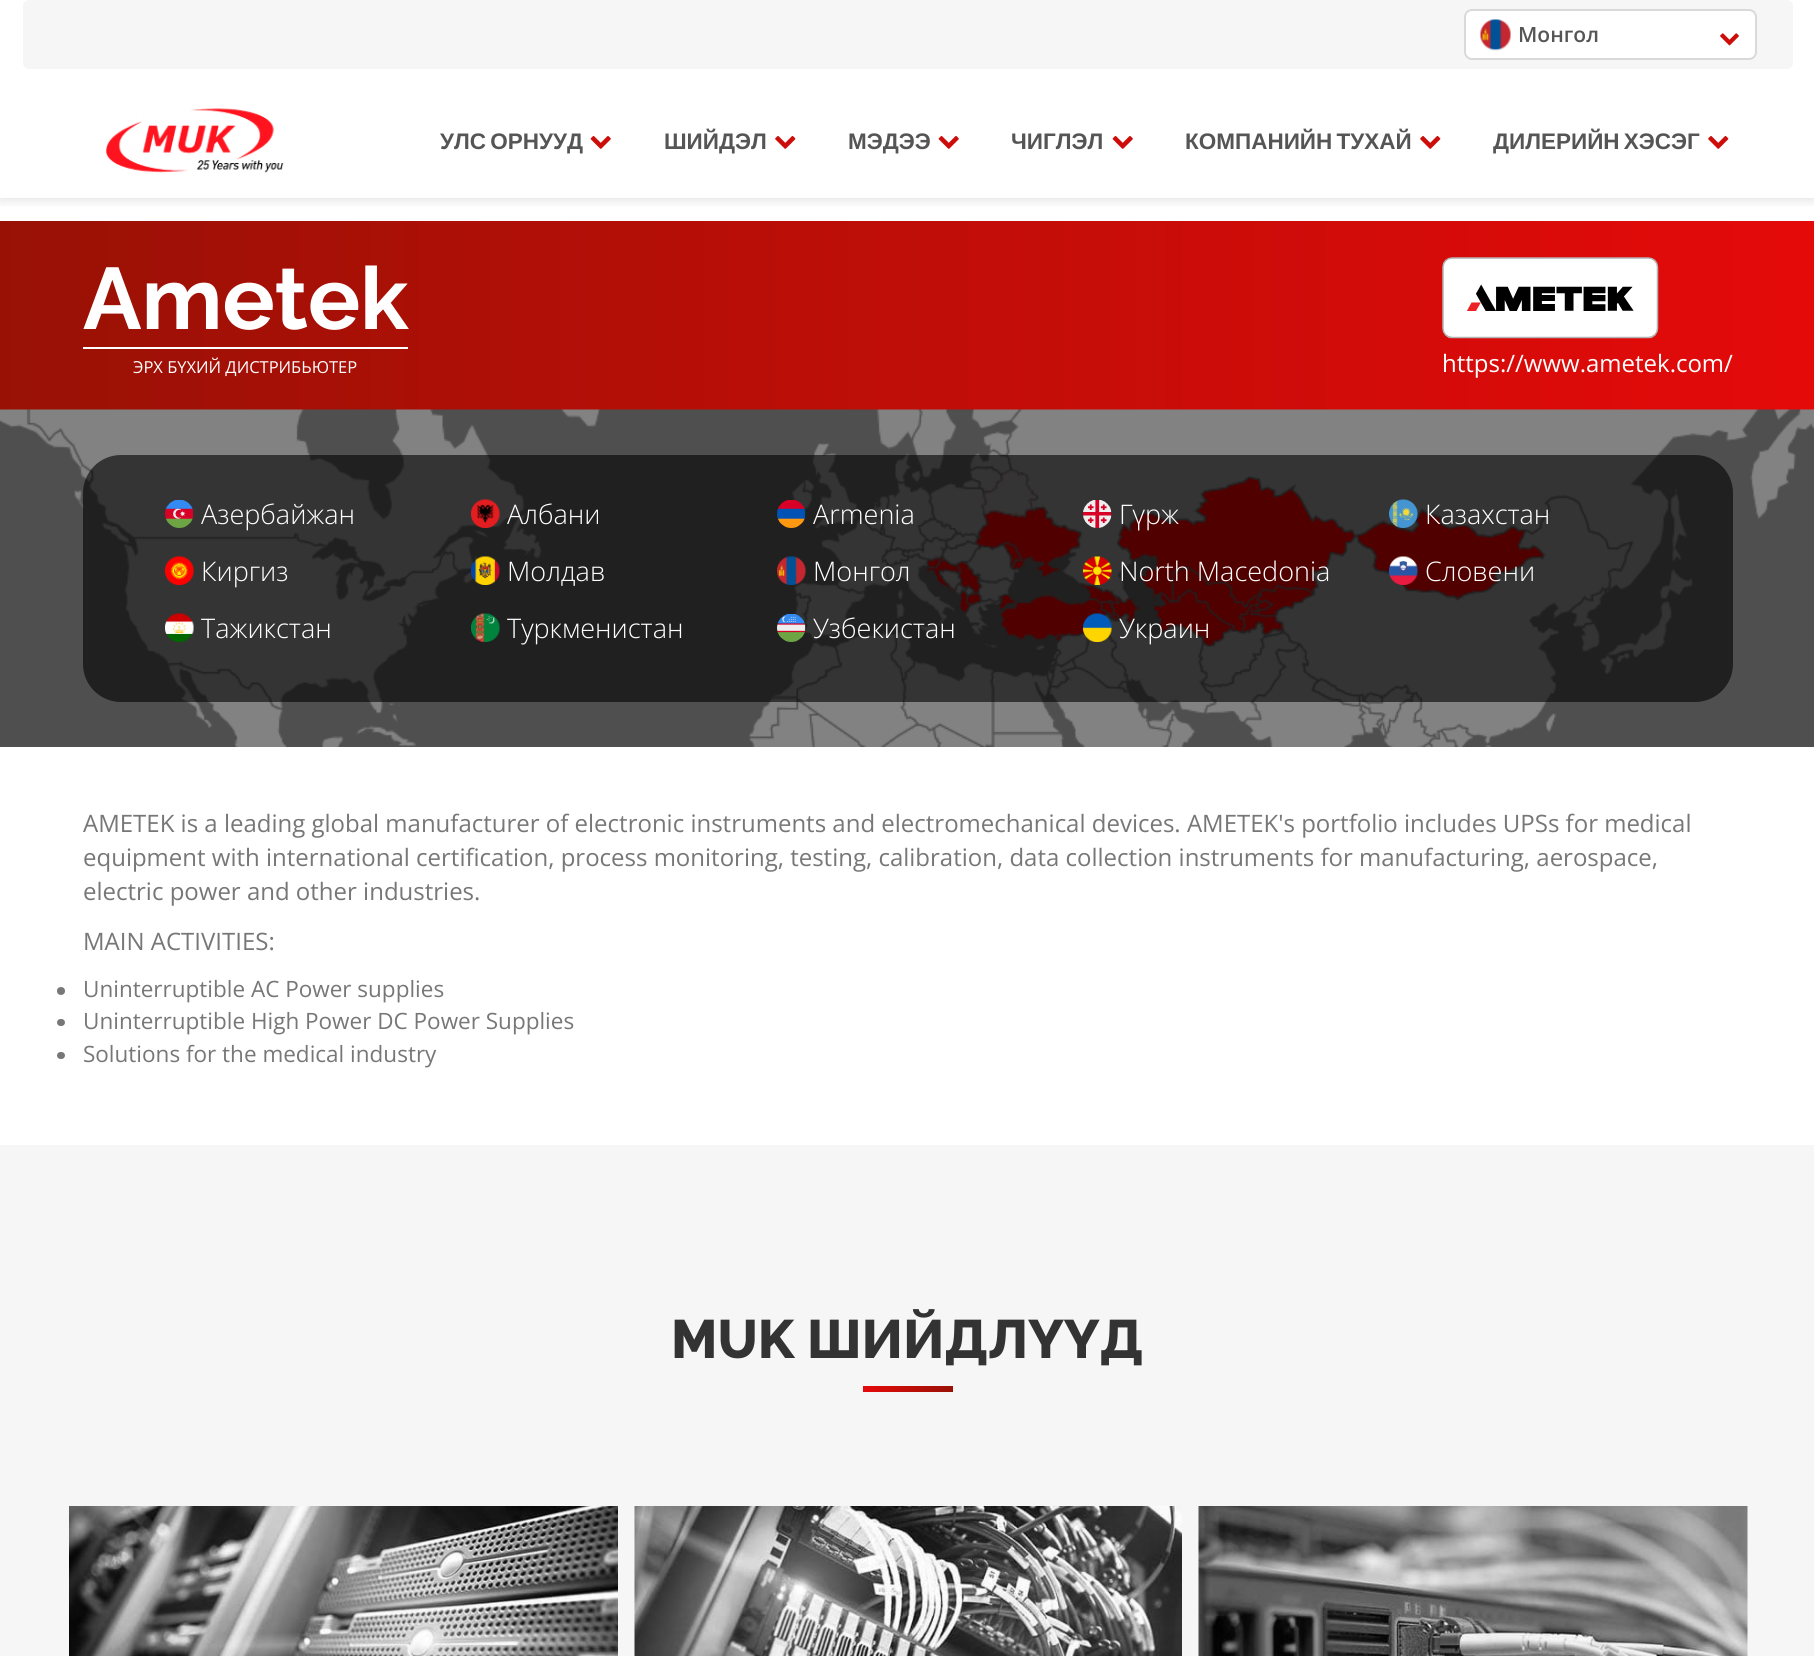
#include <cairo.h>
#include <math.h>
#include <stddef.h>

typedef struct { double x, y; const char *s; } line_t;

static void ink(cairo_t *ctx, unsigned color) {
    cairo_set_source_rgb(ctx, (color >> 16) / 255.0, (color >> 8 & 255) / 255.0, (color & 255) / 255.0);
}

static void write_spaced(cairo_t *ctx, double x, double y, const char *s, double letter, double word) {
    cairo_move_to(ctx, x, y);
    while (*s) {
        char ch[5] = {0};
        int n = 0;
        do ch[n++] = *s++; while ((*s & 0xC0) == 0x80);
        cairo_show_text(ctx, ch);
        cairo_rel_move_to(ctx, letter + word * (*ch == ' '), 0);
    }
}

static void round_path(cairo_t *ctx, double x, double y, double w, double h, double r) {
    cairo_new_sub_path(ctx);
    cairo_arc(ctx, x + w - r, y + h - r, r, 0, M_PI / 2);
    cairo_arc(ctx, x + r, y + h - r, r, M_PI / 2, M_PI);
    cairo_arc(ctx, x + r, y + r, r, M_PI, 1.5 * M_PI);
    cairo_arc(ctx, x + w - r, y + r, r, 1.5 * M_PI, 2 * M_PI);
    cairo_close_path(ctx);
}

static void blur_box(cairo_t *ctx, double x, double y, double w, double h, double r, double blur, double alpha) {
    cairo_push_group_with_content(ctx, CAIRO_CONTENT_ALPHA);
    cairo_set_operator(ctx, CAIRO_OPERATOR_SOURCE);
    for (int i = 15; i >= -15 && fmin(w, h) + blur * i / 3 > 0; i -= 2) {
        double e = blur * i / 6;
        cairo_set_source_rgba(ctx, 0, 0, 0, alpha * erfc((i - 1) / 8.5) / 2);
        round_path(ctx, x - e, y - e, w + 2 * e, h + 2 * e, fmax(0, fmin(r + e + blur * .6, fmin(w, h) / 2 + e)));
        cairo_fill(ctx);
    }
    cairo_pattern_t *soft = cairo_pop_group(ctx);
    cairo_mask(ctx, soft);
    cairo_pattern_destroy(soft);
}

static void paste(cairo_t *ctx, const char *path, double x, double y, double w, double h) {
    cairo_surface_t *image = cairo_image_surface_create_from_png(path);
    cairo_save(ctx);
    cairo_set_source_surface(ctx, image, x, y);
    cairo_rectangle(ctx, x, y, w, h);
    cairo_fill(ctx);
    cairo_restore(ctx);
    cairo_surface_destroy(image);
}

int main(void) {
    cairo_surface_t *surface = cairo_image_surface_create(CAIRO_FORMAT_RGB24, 1814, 1656);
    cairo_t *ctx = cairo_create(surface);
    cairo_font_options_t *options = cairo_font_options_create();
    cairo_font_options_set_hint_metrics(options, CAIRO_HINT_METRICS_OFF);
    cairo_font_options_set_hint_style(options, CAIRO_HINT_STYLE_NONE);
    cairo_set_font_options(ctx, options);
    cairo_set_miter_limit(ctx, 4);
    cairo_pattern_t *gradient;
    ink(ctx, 0xFFFFFF);
    cairo_paint(ctx);
    gradient = cairo_pattern_create_linear(0, 315, 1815, 315);
    cairo_pattern_add_color_stop_rgba(gradient, 0, 0.6, 0.067, 0.02, 1);
    cairo_pattern_add_color_stop_rgba(gradient, 1, 0.898, 0.039, 0.039, 1);
    cairo_set_source(ctx, gradient);
    cairo_pattern_destroy(gradient);
    cairo_rectangle(ctx, 0, 221, 1814, 189);
    cairo_fill(ctx);
    cairo_save(ctx);
    cairo_rectangle(ctx, 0, 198, 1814, 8);
    cairo_clip(ctx);
    ink(ctx, 0x000000);
    blur_box(ctx, 0, 0, 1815, 198, 0, 7.5, 0.15);
    cairo_restore(ctx);
    ink(ctx, 0xF6F6F6);
    round_path(ctx, 23, 0, 1770, 69, 6);
    cairo_fill(ctx);
    ink(ctx, 0xFFFFFF);
    round_path(ctx, 1464, 9, 293, 51, 8);
    cairo_fill(ctx);
    round_path(ctx, 1465, 10, 291, 49, 7);
    cairo_set_source_rgba(ctx, 0.502, 0.502, 0.502, 0.3);
    cairo_stroke(ctx);
    paste(ctx, "media/1.png", 1480, 19, 31, 32);
    cairo_select_font_face(ctx, "Open Sans SemiBold", CAIRO_FONT_SLANT_NORMAL, CAIRO_FONT_WEIGHT_NORMAL);
    cairo_set_font_size(ctx, 21);
    ink(ctx, 0x555555);
    cairo_move_to(ctx, 1518, 42);
    cairo_show_text(ctx, "Монгол");
    paste(ctx, "media/2.png", 1720, 33, 19, 13);
    paste(ctx, "media/3.png", 106, 108, 178, 65);
    cairo_select_font_face(ctx, "Liberation Sans", CAIRO_FONT_SLANT_NORMAL, CAIRO_FONT_WEIGHT_BOLD);
    cairo_set_font_size(ctx, 22.5);
    write_spaced(ctx, 440, 149, "УЛС ОРНУУД", 0, -2);
    paste(ctx, "media/4.png", 590, 136, 21, 13);
    cairo_move_to(ctx, 664, 149);
    cairo_show_text(ctx, "ШИЙДЭЛ");
    paste(ctx, "media/5.png", 775, 136, 21, 13);
    cairo_move_to(ctx, 848, 149);
    cairo_show_text(ctx, "МЭДЭЭ");
    paste(ctx, "media/4.png", 938, 136, 21, 13);
    cairo_move_to(ctx, 1011, 149);
    cairo_show_text(ctx, "ЧИГЛЭЛ");
    paste(ctx, "media/4.png", 1112, 136, 21, 13);
    write_spaced(ctx, 1185, 149, "КОМПАНИЙН ТУХАЙ", 0, -2);
    paste(ctx, "media/5.png", 1420, 136, 21, 13);
    write_spaced(ctx, 1493, 149, "ДИЛЕРИЙН ХЭСЭГ", 0, -2);
    paste(ctx, "media/5.png", 1708, 136, 21, 13);
    ink(ctx, 0xFFFFFF);
    cairo_rectangle(ctx, 83, 347, 325, 2);
    cairo_fill(ctx);
    cairo_select_font_face(ctx, "Raleway", CAIRO_FONT_SLANT_NORMAL, CAIRO_FONT_WEIGHT_BOLD);
    cairo_set_font_size(ctx, 87);
    cairo_move_to(ctx, 83, 329);
    cairo_show_text(ctx, "Ametek");
    cairo_select_font_face(ctx, "Open Sans", CAIRO_FONT_SLANT_NORMAL, CAIRO_FONT_WEIGHT_NORMAL);
    cairo_set_font_size(ctx, 16.5);
    cairo_move_to(ctx, 133, 373);
    cairo_show_text(ctx, "ЭРХ БҮХИЙ ДИСТРИБЬЮТЕР");
    paste(ctx, "media/6.png", 1442, 257, 217, 82);
    cairo_set_font_size(ctx, 24);
    cairo_move_to(ctx, 1442, 372);
    cairo_show_text(ctx, "https://www.ametek.com/");
    paste(ctx, "media/7.png", 0, 409, 1814, 338);
    cairo_set_source_rgba(ctx, 0, 0, 0, 0.6);
    round_path(ctx, 83, 455, 1650, 247, 38);
    cairo_fill(ctx);
    paste(ctx, "media/8.png", 165, 500, 29, 28);
    cairo_select_font_face(ctx, "Open Sans Light", CAIRO_FONT_SLANT_NORMAL, CAIRO_FONT_WEIGHT_NORMAL);
    cairo_set_font_size(ctx, 27);
    ink(ctx, 0xFFFFFF);
    cairo_move_to(ctx, 201, 524);
    cairo_show_text(ctx, "Азербайжан");
    paste(ctx, "media/9.png", 471, 499, 29, 29);
    cairo_move_to(ctx, 507, 524);
    cairo_show_text(ctx, "Албани");
    paste(ctx, "media/10.png", 777, 500, 29, 28);
    cairo_move_to(ctx, 813, 524);
    cairo_show_text(ctx, "Armenia");
    paste(ctx, "media/11.png", 1083, 500, 29, 28);
    cairo_move_to(ctx, 1119, 524);
    cairo_show_text(ctx, "Гүрж");
    paste(ctx, "media/12.png", 1389, 499, 29, 29);
    cairo_move_to(ctx, 1425, 524);
    cairo_show_text(ctx, "Казахстан");
    paste(ctx, "media/13.png", 165, 556, 29, 29);
    cairo_move_to(ctx, 201, 581);
    cairo_show_text(ctx, "Киргиз");
    paste(ctx, "media/14.png", 471, 556, 29, 29);
    cairo_move_to(ctx, 507, 581);
    cairo_show_text(ctx, "Молдав");
    paste(ctx, "media/15.png", 777, 556, 29, 29);
    cairo_move_to(ctx, 813, 581);
    cairo_show_text(ctx, "Монгол");
    paste(ctx, "media/16.png", 1083, 556, 29, 29);
    cairo_move_to(ctx, 1119, 581);
    cairo_show_text(ctx, "North Macedonia");
    paste(ctx, "media/17.png", 1389, 556, 29, 29);
    cairo_move_to(ctx, 1425, 581);
    cairo_show_text(ctx, "Словени");
    paste(ctx, "media/18.png", 165, 613, 29, 29);
    cairo_move_to(ctx, 201, 638);
    cairo_show_text(ctx, "Тажикстан");
    paste(ctx, "media/19.png", 471, 613, 29, 29);
    cairo_move_to(ctx, 507, 638);
    cairo_show_text(ctx, "Туркменистан");
    paste(ctx, "media/20.png", 777, 614, 29, 28);
    cairo_move_to(ctx, 813, 638);
    cairo_show_text(ctx, "Узбекистан");
    paste(ctx, "media/21.png", 1083, 613, 29, 29);
    cairo_move_to(ctx, 1119, 638);
    cairo_show_text(ctx, "Украин");
    cairo_select_font_face(ctx, "Open Sans", CAIRO_FONT_SLANT_NORMAL, CAIRO_FONT_WEIGHT_NORMAL);
    cairo_set_font_size(ctx, 24);
    ink(ctx, 0x777777);
    {
        static const line_t items[] = {
            {83, 832, "AMETEK is a leading global manufacturer of electronic instruments and electromechanical devices. AMETEK's portfolio includes UPSs for medical"},
            {83, 866, "equipment with international certification, process monitoring, testing, calibration, data collection instruments for manufacturing, aerospace,"},
            {83, 900, "electric power and other industries."},
            {83, 950, "MAIN ACTIVITIES:"},
        };
        for (size_t i = 0; i < sizeof items / sizeof *items; i++) {
            cairo_move_to(ctx, items[i].x, items[i].y);
            cairo_show_text(ctx, items[i].s);
        }
    }
    cairo_new_path(ctx);
    cairo_arc(ctx, 61, 991, 4, 0, 2 * M_PI);
    cairo_fill(ctx);
    cairo_set_font_size(ctx, 22.5);
    cairo_move_to(ctx, 83, 997);
    cairo_show_text(ctx, "Uninterruptible AC Power supplies");
    round_path(ctx, 57, 1019, 8, 7, 3.5);
    cairo_fill(ctx);
    cairo_move_to(ctx, 83, 1029);
    cairo_show_text(ctx, "Uninterruptible High Power DC Power Supplies");
    round_path(ctx, 57, 1052, 8, 7, 3.5);
    cairo_fill(ctx);
    cairo_move_to(ctx, 83, 1062);
    cairo_show_text(ctx, "Solutions for the medical industry");
    ink(ctx, 0xF6F6F6);
    cairo_rectangle(ctx, 0, 1145, 1814, 511);
    cairo_fill(ctx);
    cairo_select_font_face(ctx, "Raleway ExtraBold", CAIRO_FONT_SLANT_NORMAL, CAIRO_FONT_WEIGHT_NORMAL);
    cairo_set_font_size(ctx, 54);
    ink(ctx, 0x333333);
    cairo_move_to(ctx, 671, 1358);
    cairo_show_text(ctx, "MUK ШИЙДЛҮҮД");
    gradient = cairo_pattern_create_linear(863, 1389, 953, 1389);
    cairo_pattern_add_color_stop_rgba(gradient, 0, 0.898, 0.039, 0.039, 1);
    cairo_pattern_add_color_stop_rgba(gradient, 1, 0.6, 0.067, 0.02, 1);
    cairo_set_source(ctx, gradient);
    cairo_pattern_destroy(gradient);
    cairo_rectangle(ctx, 863, 1386, 90, 6);
    cairo_fill(ctx);
    paste(ctx, "media/22.png", 69, 1506, 549, 150);
    paste(ctx, "media/23.png", 634, 1506, 548, 150);
    paste(ctx, "media/24.png", 1198, 1506, 550, 150);
    cairo_surface_write_to_png(surface, "image.png");
    cairo_font_options_destroy(options);
    cairo_destroy(ctx);
    cairo_surface_destroy(surface);
    return 0;
}
